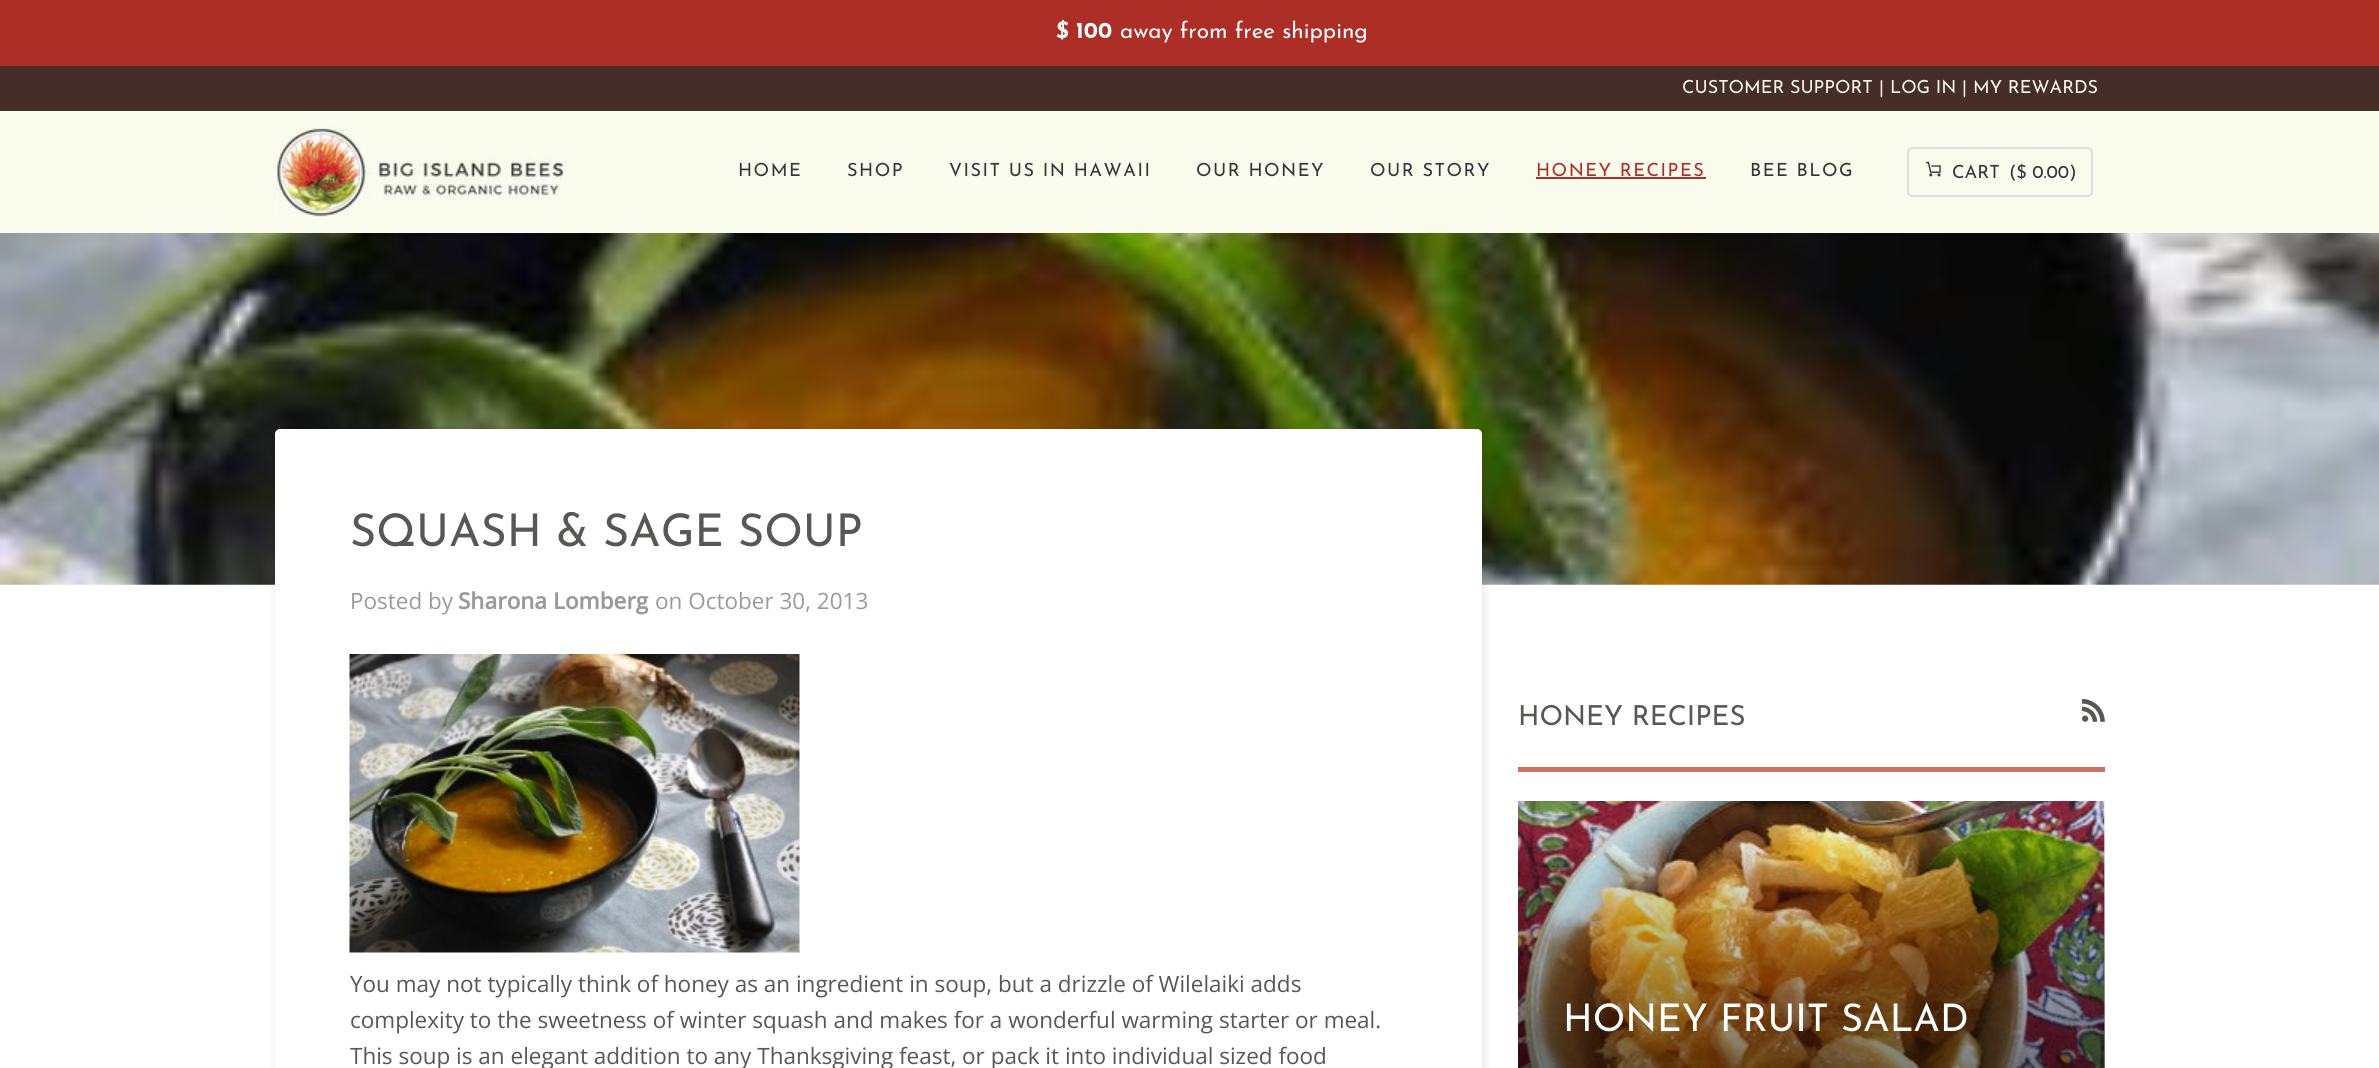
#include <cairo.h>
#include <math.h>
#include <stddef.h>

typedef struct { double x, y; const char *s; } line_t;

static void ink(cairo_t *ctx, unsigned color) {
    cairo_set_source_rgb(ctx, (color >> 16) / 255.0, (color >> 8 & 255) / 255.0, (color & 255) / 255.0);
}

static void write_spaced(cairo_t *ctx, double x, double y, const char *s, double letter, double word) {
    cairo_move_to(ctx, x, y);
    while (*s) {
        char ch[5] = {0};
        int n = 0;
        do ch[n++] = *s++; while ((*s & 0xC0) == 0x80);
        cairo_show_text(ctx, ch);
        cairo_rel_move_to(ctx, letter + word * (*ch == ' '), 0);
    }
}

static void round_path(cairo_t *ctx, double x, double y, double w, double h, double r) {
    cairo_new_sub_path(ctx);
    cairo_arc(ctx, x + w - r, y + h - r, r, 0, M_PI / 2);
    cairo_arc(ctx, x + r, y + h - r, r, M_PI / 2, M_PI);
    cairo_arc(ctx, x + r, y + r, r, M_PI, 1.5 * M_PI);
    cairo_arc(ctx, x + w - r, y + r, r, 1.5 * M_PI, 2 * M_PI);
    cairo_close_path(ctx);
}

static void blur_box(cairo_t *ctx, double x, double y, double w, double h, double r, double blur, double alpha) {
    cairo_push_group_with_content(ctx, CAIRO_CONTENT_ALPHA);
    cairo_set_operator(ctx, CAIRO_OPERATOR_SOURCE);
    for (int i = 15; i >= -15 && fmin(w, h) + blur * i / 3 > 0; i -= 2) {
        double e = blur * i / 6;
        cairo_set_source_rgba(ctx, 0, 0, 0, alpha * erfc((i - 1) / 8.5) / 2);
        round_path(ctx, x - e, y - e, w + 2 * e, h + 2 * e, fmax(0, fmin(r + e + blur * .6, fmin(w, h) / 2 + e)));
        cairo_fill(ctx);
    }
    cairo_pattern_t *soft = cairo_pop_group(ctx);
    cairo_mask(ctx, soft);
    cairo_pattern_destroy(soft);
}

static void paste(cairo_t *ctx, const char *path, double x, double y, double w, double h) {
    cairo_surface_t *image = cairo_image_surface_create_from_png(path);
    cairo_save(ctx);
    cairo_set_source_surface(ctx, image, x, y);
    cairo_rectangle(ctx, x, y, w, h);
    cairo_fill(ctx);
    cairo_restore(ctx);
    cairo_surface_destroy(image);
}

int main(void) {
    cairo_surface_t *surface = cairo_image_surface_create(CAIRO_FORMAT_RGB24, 2379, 1068);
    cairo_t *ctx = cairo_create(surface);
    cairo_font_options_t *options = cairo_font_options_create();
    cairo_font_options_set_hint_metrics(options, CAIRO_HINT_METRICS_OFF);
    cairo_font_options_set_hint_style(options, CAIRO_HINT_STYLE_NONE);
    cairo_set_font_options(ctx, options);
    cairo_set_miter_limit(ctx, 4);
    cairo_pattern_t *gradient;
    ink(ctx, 0xFFFFFF);
    cairo_paint(ctx);
    ink(ctx, 0xAD2E27);
    cairo_rectangle(ctx, 0, 0, 2379, 66);
    cairo_fill(ctx);
    cairo_select_font_face(ctx, "Josefin Sans", CAIRO_FONT_SLANT_NORMAL, CAIRO_FONT_WEIGHT_BOLD);
    cairo_set_font_size(ctx, 22.5);
    ink(ctx, 0xFFFFFF);
    cairo_move_to(ctx, 1056, 38);
    cairo_show_text(ctx, "$ 100");
    cairo_select_font_face(ctx, "Josefin Sans", CAIRO_FONT_SLANT_NORMAL, CAIRO_FONT_WEIGHT_NORMAL);
    cairo_move_to(ctx, 1120, 38);
    cairo_show_text(ctx, "away from free shipping");
    ink(ctx, 0x452E28);
    cairo_rectangle(ctx, 0, 66, 2379, 45);
    cairo_fill(ctx);
    cairo_set_font_size(ctx, 18);
    ink(ctx, 0xF4F6E9);
    {
        static const line_t items[] = {
            {1682, 93, "CUSTOMER SUPPORT"},
            {1879, 93, "|"},
            {1890, 93, "LOG IN"},
            {1962, 93, "|"},
            {1973, 93, "MY REWARDS"},
        };
        for (size_t i = 0; i < sizeof items / sizeof *items; i++) {
            cairo_move_to(ctx, items[i].x, items[i].y);
            cairo_show_text(ctx, items[i].s);
        }
    }
    ink(ctx, 0xF9FBED);
    cairo_rectangle(ctx, 0, 111, 2379, 122);
    cairo_fill(ctx);
    paste(ctx, "media/1.png", 274, 126, 290, 92);
    cairo_set_font_size(ctx, 18.1);
    ink(ctx, 0x36353B);
    {
        static const line_t items[] = {
            {738, 176, "HOME"},
            {847, 176, "SHOP"},
            {949, 176, "VISIT US IN HAWAII"},
            {1196, 176, "OUR HONEY"},
            {1370, 176, "OUR STORY"},
        };
        for (size_t i = 0; i < sizeof items / sizeof *items; i++) {
            write_spaced(ctx, items[i].x, items[i].y, items[i].s, 1.5, 0);
        }
    }
    ink(ctx, 0xAD2E27);
    write_spaced(ctx, 1536, 176, "HONEY RECIPES", 1.5, 0);
    cairo_rectangle(ctx, 1536, 177, 170, 2);
    cairo_fill(ctx);
    ink(ctx, 0x36353B);
    write_spaced(ctx, 1750, 176, "BEE BLOG", 1.5, 0);
    round_path(ctx, 1908, 148, 184, 48, 4);
    ink(ctx, 0xDDDDDD);
    cairo_stroke(ctx);
    paste(ctx, "media/2.png", 1925, 161, 16, 16);
    ink(ctx, 0x36353B);
    cairo_move_to(ctx, 1952, 178);
    cairo_show_text(ctx, "CART");
    cairo_move_to(ctx, 2009, 178);
    cairo_show_text(ctx, "($ 0.00)");
    paste(ctx, "media/3.png", 0, 233, 2379, 352);
    ink(ctx, 0x000000);
    blur_box(ctx, 276, 431, 1208, 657, 5, 5, 0.1);
    ink(ctx, 0xFFFFFF);
    round_path(ctx, 275, 429, 1207, 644, 5);
    cairo_fill(ctx);
    cairo_set_font_size(ctx, 45);
    ink(ctx, 0x585755);
    cairo_move_to(ctx, 350, 546);
    cairo_show_text(ctx, "SQUASH & SAGE SOUP");
    cairo_select_font_face(ctx, "Open Sans", CAIRO_FONT_SLANT_NORMAL, CAIRO_FONT_WEIGHT_NORMAL);
    cairo_set_font_size(ctx, 22.5);
    ink(ctx, 0x9B9A99);
    cairo_move_to(ctx, 350, 609);
    cairo_show_text(ctx, "Posted by");
    cairo_select_font_face(ctx, "Open Sans", CAIRO_FONT_SLANT_NORMAL, CAIRO_FONT_WEIGHT_BOLD);
    cairo_move_to(ctx, 458, 609);
    cairo_show_text(ctx, "Sharona Lomberg");
    cairo_select_font_face(ctx, "Open Sans", CAIRO_FONT_SLANT_NORMAL, CAIRO_FONT_WEIGHT_NORMAL);
    cairo_move_to(ctx, 655, 609);
    cairo_show_text(ctx, "on October 30, 2013");
    paste(ctx, "media/4.png", 349, 654, 451, 299);
    ink(ctx, 0x585755);
    {
        static const line_t items[] = {
            {350, 992, "You may not typically think of honey as an ingredient in soup, but a drizzle of Wilelaiki adds"},
            {350, 1028, "complexity to the sweetness of winter squash and makes for a wonderful warming starter or meal."},
            {350, 1064, "This soup is an elegant addition to any Thanksgiving feast, or pack it into individual sized food"},
        };
        for (size_t i = 0; i < sizeof items / sizeof *items; i++) {
            cairo_move_to(ctx, items[i].x, items[i].y);
            cairo_show_text(ctx, items[i].s);
        }
    }
    cairo_select_font_face(ctx, "Josefin Sans", CAIRO_FONT_SLANT_NORMAL, CAIRO_FONT_WEIGHT_NORMAL);
    cairo_set_font_size(ctx, 27.5);
    cairo_move_to(ctx, 1518, 725);
    cairo_show_text(ctx, "HONEY RECIPES");
    paste(ctx, "media/5.png", 2082, 699, 23, 23);
    ink(ctx, 0xC77368);
    cairo_rectangle(ctx, 1518, 767, 587, 5);
    cairo_fill(ctx);
    paste(ctx, "media/6.png", 1518, 801, 587, 267);
    gradient = cairo_pattern_create_linear(1811, 801, 1811, 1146);
    cairo_pattern_add_color_stop_rgba(gradient, 0, 0, 0, 0, 0);
    cairo_pattern_add_color_stop_rgba(gradient, 1, 0, 0, 0, 0.65);
    cairo_set_source(ctx, gradient);
    cairo_pattern_destroy(gradient);
    cairo_rectangle(ctx, 1518, 812, 587, 256);
    cairo_fill(ctx);
    cairo_set_font_size(ctx, 38);
    ink(ctx, 0xFFFFFF);
    cairo_move_to(ctx, 1563, 1031);
    cairo_show_text(ctx, "HONEY FRUIT SALAD");
    cairo_surface_write_to_png(surface, "image.png");
    cairo_font_options_destroy(options);
    cairo_destroy(ctx);
    cairo_surface_destroy(surface);
    return 0;
}
